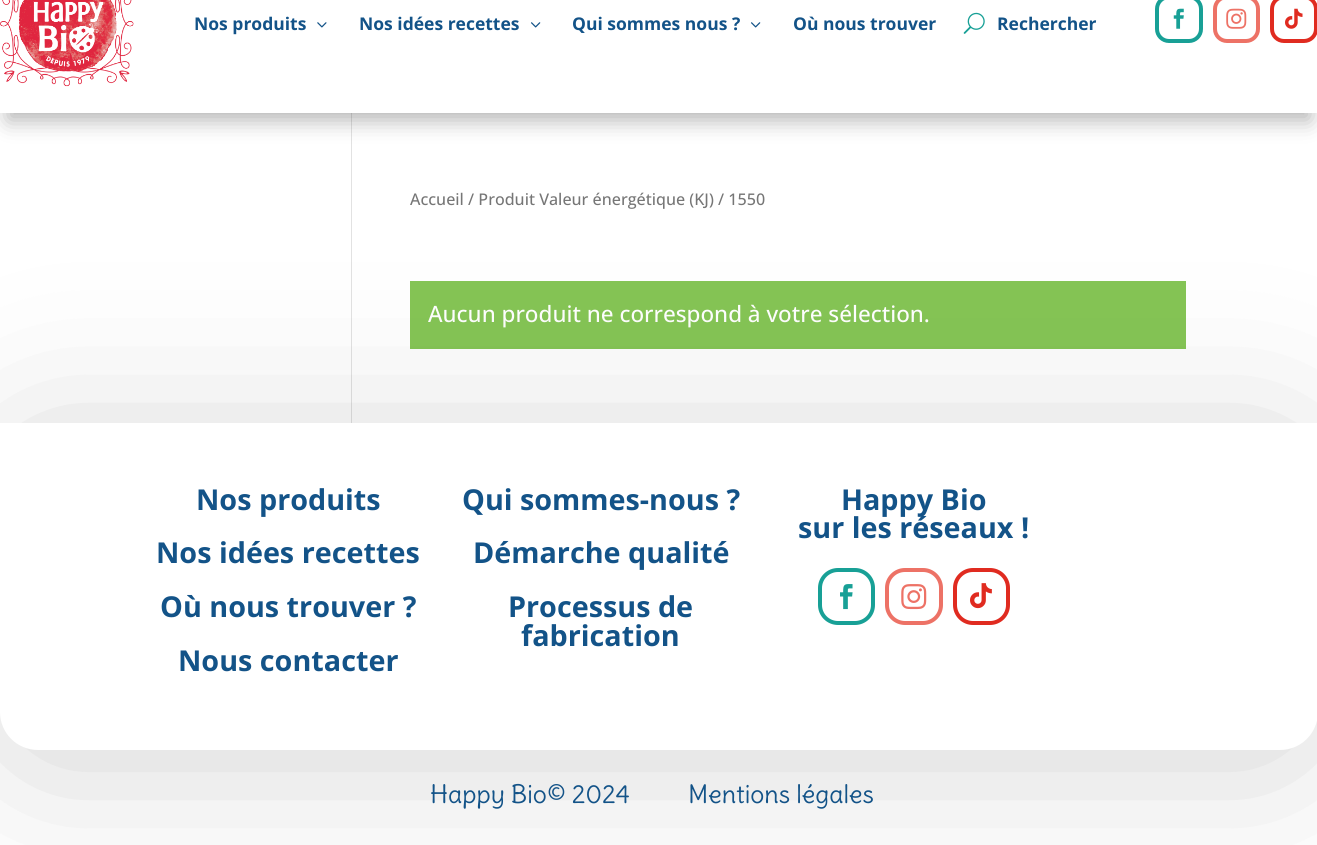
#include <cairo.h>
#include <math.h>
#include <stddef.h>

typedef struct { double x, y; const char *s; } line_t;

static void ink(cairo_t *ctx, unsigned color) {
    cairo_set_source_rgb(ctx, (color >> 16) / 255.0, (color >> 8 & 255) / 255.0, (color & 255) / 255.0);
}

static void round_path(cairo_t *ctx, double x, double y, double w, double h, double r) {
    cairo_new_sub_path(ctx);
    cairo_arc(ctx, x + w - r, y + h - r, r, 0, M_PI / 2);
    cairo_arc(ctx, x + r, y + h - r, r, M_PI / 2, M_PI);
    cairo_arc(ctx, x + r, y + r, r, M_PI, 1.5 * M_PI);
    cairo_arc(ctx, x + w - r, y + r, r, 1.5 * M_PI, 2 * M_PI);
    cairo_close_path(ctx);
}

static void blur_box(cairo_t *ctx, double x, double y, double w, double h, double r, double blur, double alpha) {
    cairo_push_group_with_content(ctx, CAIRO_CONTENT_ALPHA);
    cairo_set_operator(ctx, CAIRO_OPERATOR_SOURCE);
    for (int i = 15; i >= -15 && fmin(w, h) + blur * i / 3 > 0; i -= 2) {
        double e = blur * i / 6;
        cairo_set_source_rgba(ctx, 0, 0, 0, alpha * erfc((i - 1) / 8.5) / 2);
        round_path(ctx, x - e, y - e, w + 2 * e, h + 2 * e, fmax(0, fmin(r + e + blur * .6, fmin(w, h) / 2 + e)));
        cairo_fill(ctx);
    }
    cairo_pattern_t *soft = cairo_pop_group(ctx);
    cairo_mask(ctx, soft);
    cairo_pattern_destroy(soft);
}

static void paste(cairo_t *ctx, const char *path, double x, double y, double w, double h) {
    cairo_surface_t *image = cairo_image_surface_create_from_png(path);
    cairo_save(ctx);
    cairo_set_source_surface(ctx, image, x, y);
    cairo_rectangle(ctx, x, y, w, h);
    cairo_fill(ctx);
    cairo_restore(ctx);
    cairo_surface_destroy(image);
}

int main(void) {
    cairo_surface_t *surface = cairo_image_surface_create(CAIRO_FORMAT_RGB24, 1317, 845);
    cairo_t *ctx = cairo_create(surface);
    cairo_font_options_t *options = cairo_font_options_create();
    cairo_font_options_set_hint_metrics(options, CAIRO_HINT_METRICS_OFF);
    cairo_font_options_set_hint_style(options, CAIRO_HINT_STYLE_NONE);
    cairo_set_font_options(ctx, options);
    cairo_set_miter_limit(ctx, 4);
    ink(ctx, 0xFFFFFF);
    cairo_paint(ctx);
    ink(ctx, 0xE2E2E2);
    cairo_rectangle(ctx, 351, 113, 1, 310);
    cairo_fill(ctx);
    ink(ctx, 0x000000);
    blur_box(ctx, 8, -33, 1302, 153, 0, 11, 0.3);
    ink(ctx, 0xFFFFFF);
    cairo_rectangle(ctx, 0, 0, 1317, 113);
    cairo_fill(ctx);
    paste(ctx, "media/1.png", 0, 0, 134, 87);
    cairo_select_font_face(ctx, "Open Sans", CAIRO_FONT_SLANT_NORMAL, CAIRO_FONT_WEIGHT_BOLD);
    cairo_set_font_size(ctx, 17.5);
    ink(ctx, 0x135388);
    cairo_move_to(ctx, 194, 30);
    cairo_show_text(ctx, "Nos produits");
    paste(ctx, "media/2.png", 317, 22, 10, 6);
    cairo_move_to(ctx, 359, 30);
    cairo_show_text(ctx, "Nos idées recettes");
    paste(ctx, "media/3.png", 531, 22, 10, 6);
    cairo_move_to(ctx, 572, 30);
    cairo_show_text(ctx, "Qui sommes nous ?");
    paste(ctx, "media/3.png", 751, 22, 10, 6);
    cairo_move_to(ctx, 793, 30);
    cairo_show_text(ctx, "Où nous trouver");
    paste(ctx, "media/4.png", 963, 12, 22, 22);
    cairo_move_to(ctx, 997, 30);
    cairo_show_text(ctx, "Rechercher");
    round_path(ctx, 1157, -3, 44, 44, 12);
    ink(ctx, 0x18A096);
    cairo_set_line_width(ctx, 4);
    cairo_stroke(ctx);
    paste(ctx, "media/5.png", 1173, 8, 11, 21);
    round_path(ctx, 1215, -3, 43, 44, 12);
    ink(ctx, 0xED7266);
    cairo_stroke(ctx);
    paste(ctx, "media/6.png", 1226, 8, 21, 21);
    round_path(ctx, 1272, -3, 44, 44, 12);
    ink(ctx, 0xE02B20);
    cairo_stroke(ctx);
    paste(ctx, "media/7.png", 1285, 8, 18, 21);
    cairo_select_font_face(ctx, "Open Sans Medium", CAIRO_FONT_SLANT_NORMAL, CAIRO_FONT_WEIGHT_NORMAL);
    cairo_set_font_size(ctx, 16.1);
    ink(ctx, 0x767676);
    cairo_move_to(ctx, 410, 205);
    cairo_show_text(ctx, "Accueil / Produit Valeur énergétique (KJ) / 1550");
    ink(ctx, 0x85C555);
    cairo_rectangle(ctx, 410, 281, 776, 68);
    cairo_fill(ctx);
    cairo_set_font_size(ctx, 22.5);
    ink(ctx, 0xFFFFFF);
    cairo_move_to(ctx, 428, 322);
    cairo_show_text(ctx, "Aucun produit ne correspond à votre sélection.");
    ink(ctx, 0x000000);
    blur_box(ctx, 8, 445, 1302, 313, 30, 84.5, 0.18);
    ink(ctx, 0xFFFFFF);
    cairo_new_path(ctx);
    cairo_move_to(ctx, 0, 423);
    cairo_line_to(ctx, 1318, 423);
    cairo_line_to(ctx, 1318, 712);
    cairo_curve_to(ctx, 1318, 733, 1301, 750, 1280, 750);
    cairo_line_to(ctx, 38, 750);
    cairo_curve_to(ctx, 17, 750, 0, 733, 0, 712);
    cairo_close_path(ctx);
    cairo_fill(ctx);
    cairo_select_font_face(ctx, "Open Sans", CAIRO_FONT_SLANT_NORMAL, CAIRO_FONT_WEIGHT_BOLD);
    cairo_set_font_size(ctx, 28.75);
    ink(ctx, 0x135388);
    {
        static const line_t items[] = {
            {196, 510, "Nos produits"},
            {156, 563, "Nos idées recettes"},
            {160, 617, "Où nous trouver ?"},
            {178, 671, "Nous contacter"},
            {462, 510, "Qui sommes-nous ?"},
            {473, 563, "Démarche qualité"},
            {508, 617, "Processus de"},
            {521, 646, "fabrication"},
            {841, 510, "Happy Bio"},
            {798, 538, "sur les réseaux !"},
        };
        for (size_t i = 0; i < sizeof items / sizeof *items; i++) {
            cairo_move_to(ctx, items[i].x, items[i].y);
            cairo_show_text(ctx, items[i].s);
        }
    }
    round_path(ctx, 820, 570, 53, 53, 18);
    ink(ctx, 0x18A096);
    cairo_stroke(ctx);
    paste(ctx, "media/8.png", 840, 584, 13, 26);
    round_path(ctx, 887, 570, 54, 53, 18);
    ink(ctx, 0xED7266);
    cairo_stroke(ctx);
    paste(ctx, "media/9.png", 901, 584, 26, 26);
    round_path(ctx, 955, 570, 53, 53, 18);
    ink(ctx, 0xE02B20);
    cairo_stroke(ctx);
    paste(ctx, "media/10.png", 970, 583, 22, 26);
    cairo_select_font_face(ctx, "Delius", CAIRO_FONT_SLANT_NORMAL, CAIRO_FONT_WEIGHT_NORMAL);
    cairo_set_font_size(ctx, 25);
    ink(ctx, 0x135388);
    cairo_move_to(ctx, 430, 803);
    cairo_show_text(ctx, "Happy Bio© 2024");
    cairo_move_to(ctx, 688, 803);
    cairo_show_text(ctx, "Mentions légales");
    cairo_surface_write_to_png(surface, "image.png");
    cairo_font_options_destroy(options);
    cairo_destroy(ctx);
    cairo_surface_destroy(surface);
    return 0;
}
